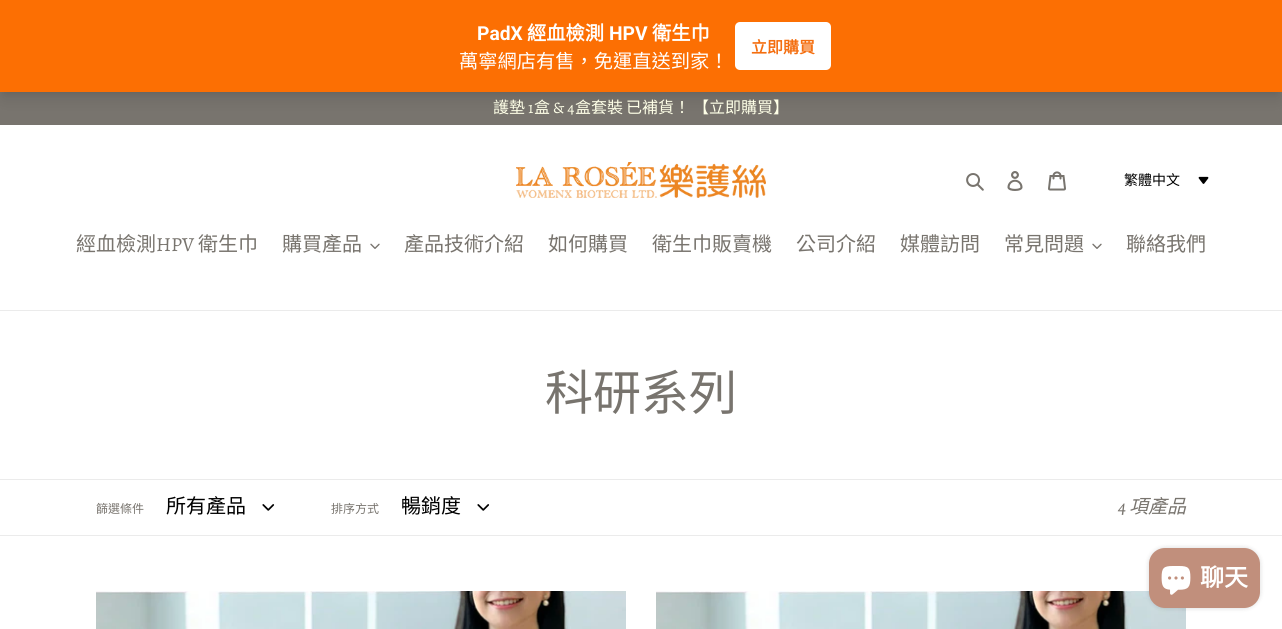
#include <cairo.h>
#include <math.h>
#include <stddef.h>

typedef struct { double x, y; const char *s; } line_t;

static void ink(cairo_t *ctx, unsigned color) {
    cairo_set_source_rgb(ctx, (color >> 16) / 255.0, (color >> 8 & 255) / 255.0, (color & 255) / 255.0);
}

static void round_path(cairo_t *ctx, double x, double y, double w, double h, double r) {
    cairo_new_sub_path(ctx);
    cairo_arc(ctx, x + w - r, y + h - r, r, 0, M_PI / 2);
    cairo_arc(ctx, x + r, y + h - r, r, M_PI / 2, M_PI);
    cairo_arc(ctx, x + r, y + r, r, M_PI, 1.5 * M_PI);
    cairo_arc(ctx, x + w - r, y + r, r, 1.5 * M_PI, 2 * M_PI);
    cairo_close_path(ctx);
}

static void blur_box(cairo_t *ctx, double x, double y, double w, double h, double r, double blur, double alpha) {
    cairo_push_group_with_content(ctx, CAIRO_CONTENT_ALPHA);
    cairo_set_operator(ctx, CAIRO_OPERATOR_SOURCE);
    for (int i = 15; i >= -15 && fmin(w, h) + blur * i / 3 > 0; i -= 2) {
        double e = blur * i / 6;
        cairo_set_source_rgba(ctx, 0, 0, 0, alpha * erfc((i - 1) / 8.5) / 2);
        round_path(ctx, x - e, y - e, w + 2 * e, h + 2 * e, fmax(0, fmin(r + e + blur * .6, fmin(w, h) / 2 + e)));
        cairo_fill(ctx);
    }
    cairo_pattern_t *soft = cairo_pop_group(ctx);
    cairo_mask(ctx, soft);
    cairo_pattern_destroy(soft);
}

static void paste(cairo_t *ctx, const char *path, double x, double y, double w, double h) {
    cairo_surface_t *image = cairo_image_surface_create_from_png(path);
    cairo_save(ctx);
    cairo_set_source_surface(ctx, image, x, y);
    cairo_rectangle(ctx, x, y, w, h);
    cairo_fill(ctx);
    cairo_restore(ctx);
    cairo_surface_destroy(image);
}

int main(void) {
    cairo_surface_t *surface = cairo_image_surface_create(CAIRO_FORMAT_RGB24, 1282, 629);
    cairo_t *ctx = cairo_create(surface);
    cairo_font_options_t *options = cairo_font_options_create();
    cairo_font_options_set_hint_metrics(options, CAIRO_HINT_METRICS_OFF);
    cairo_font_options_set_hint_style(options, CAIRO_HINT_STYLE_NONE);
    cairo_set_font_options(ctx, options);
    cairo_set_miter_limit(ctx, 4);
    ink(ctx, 0xFFFFFF);
    cairo_paint(ctx);
    ink(ctx, 0x78746E);
    cairo_rectangle(ctx, 0, 92, 1282, 33);
    cairo_fill(ctx);
    ink(ctx, 0x000000);
    blur_box(ctx, 2, 6, 1278, 88, 0, 3, 0.05);
    blur_box(ctx, 3, 13, 1276, 86, 0, 7.5, 0.1);
    ink(ctx, 0xFC6F03);
    cairo_rectangle(ctx, 0, 0, 1282, 92);
    cairo_fill(ctx);
    cairo_select_font_face(ctx, "Roboto", CAIRO_FONT_SLANT_NORMAL, CAIRO_FONT_WEIGHT_BOLD);
    cairo_set_font_size(ctx, 19.25);
    ink(ctx, 0xFFFFFF);
    cairo_move_to(ctx, 477, 40);
    cairo_show_text(ctx, "PadX");
    cairo_select_font_face(ctx, "Noto Sans CJK TC", CAIRO_FONT_SLANT_NORMAL, CAIRO_FONT_WEIGHT_BOLD);
    cairo_move_to(ctx, 527, 40);
    cairo_show_text(ctx, "經血檢測");
    cairo_select_font_face(ctx, "Roboto", CAIRO_FONT_SLANT_NORMAL, CAIRO_FONT_WEIGHT_BOLD);
    cairo_move_to(ctx, 609, 40);
    cairo_show_text(ctx, "HPV");
    cairo_select_font_face(ctx, "Noto Sans CJK TC", CAIRO_FONT_SLANT_NORMAL, CAIRO_FONT_WEIGHT_BOLD);
    cairo_move_to(ctx, 652, 40);
    cairo_show_text(ctx, "衛生巾");
    cairo_select_font_face(ctx, "Noto Sans CJK TC", CAIRO_FONT_SLANT_NORMAL, CAIRO_FONT_WEIGHT_NORMAL);
    cairo_move_to(ctx, 459, 68);
    cairo_show_text(ctx, "萬寧網店有售，免運直送到家！");
    round_path(ctx, 735, 22, 96, 48, 5);
    cairo_fill(ctx);
    cairo_select_font_face(ctx, "Noto Sans CJK TC", CAIRO_FONT_SLANT_NORMAL, CAIRO_FONT_WEIGHT_BOLD);
    cairo_set_font_size(ctx, 16);
    ink(ctx, 0xF46E0F);
    cairo_move_to(ctx, 751, 53);
    cairo_show_text(ctx, "立即購買");
    cairo_select_font_face(ctx, "Noto Sans CJK TC", CAIRO_FONT_SLANT_NORMAL, CAIRO_FONT_WEIGHT_NORMAL);
    ink(ctx, 0xFEFFE7);
    cairo_move_to(ctx, 493, 113);
    cairo_show_text(ctx, "護墊");
    cairo_select_font_face(ctx, "Alegreya", CAIRO_FONT_SLANT_NORMAL, CAIRO_FONT_WEIGHT_NORMAL);
    cairo_move_to(ctx, 528, 113);
    cairo_show_text(ctx, "1");
    cairo_select_font_face(ctx, "Noto Sans CJK TC", CAIRO_FONT_SLANT_NORMAL, CAIRO_FONT_WEIGHT_NORMAL);
    cairo_move_to(ctx, 534, 113);
    cairo_show_text(ctx, "盒");
    cairo_select_font_face(ctx, "Alegreya", CAIRO_FONT_SLANT_NORMAL, CAIRO_FONT_WEIGHT_NORMAL);
    cairo_move_to(ctx, 553, 113);
    cairo_show_text(ctx, "& 4");
    cairo_select_font_face(ctx, "Noto Sans CJK TC", CAIRO_FONT_SLANT_NORMAL, CAIRO_FONT_WEIGHT_NORMAL);
    {
        static const line_t items[] = {
            {575, 113, "盒套裝"},
            {626, 113, "已補貨！"},
            {693, 113, "【立即購買】"},
        };
        for (size_t i = 0; i < sizeof items / sizeof *items; i++) {
            cairo_move_to(ctx, items[i].x, items[i].y);
            cairo_show_text(ctx, items[i].s);
        }
    }
    paste(ctx, "media/1.png", 516, 162, 250, 36);
    paste(ctx, "media/2.png", 966, 173, 18, 18);
    paste(ctx, "media/3.png", 1007, 171, 16, 20);
    paste(ctx, "media/4.png", 1048, 171, 18, 20);
    cairo_set_font_size(ctx, 14);
    ink(ctx, 0x000000);
    cairo_move_to(ctx, 1124, 185);
    cairo_show_text(ctx, "繁體中文");
    paste(ctx, "media/5.png", 1198, 176, 11, 8);
    ink(ctx, 0xEBEBEB);
    cairo_rectangle(ctx, 0, 310, 1282, 1);
    cairo_fill(ctx);
    cairo_set_font_size(ctx, 20);
    ink(ctx, 0x78746E);
    cairo_move_to(ctx, 76, 251);
    cairo_show_text(ctx, "經血檢測");
    cairo_select_font_face(ctx, "Alegreya", CAIRO_FONT_SLANT_NORMAL, CAIRO_FONT_WEIGHT_NORMAL);
    cairo_move_to(ctx, 156, 251);
    cairo_show_text(ctx, "HPV");
    cairo_select_font_face(ctx, "Noto Sans CJK TC", CAIRO_FONT_SLANT_NORMAL, CAIRO_FONT_WEIGHT_NORMAL);
    cairo_move_to(ctx, 198, 251);
    cairo_show_text(ctx, "衛生巾");
    cairo_move_to(ctx, 282, 251);
    cairo_show_text(ctx, "購買產品");
    paste(ctx, "media/6.png", 370, 243, 10, 6);
    {
        static const line_t items[] = {
            {404, 251, "產品技術介紹"},
            {548, 251, "如何購買"},
            {652, 251, "衛生巾販賣機"},
            {796, 251, "公司介紹"},
            {900, 251, "媒體訪問"},
            {1004, 251, "常見問題"},
        };
        for (size_t i = 0; i < sizeof items / sizeof *items; i++) {
            cairo_move_to(ctx, items[i].x, items[i].y);
            cairo_show_text(ctx, items[i].s);
        }
    }
    paste(ctx, "media/6.png", 1092, 243, 10, 6);
    cairo_move_to(ctx, 1126, 251);
    cairo_show_text(ctx, "聯絡我們");
    cairo_set_font_size(ctx, 48);
    cairo_move_to(ctx, 545, 410);
    cairo_show_text(ctx, "科研系列");
    ink(ctx, 0xEBEBEB);
    cairo_rectangle(ctx, 0, 479, 1282, 1);
    cairo_fill(ctx);
    cairo_rectangle(ctx, 0, 535, 1282, 1);
    cairo_fill(ctx);
    cairo_set_font_size(ctx, 12);
    ink(ctx, 0x78746E);
    cairo_move_to(ctx, 96, 513);
    cairo_show_text(ctx, "篩選條件");
    cairo_set_font_size(ctx, 20);
    ink(ctx, 0x000000);
    cairo_move_to(ctx, 166, 513);
    cairo_show_text(ctx, "所有產品");
    paste(ctx, "media/7.png", 262, 504, 13, 7);
    cairo_set_font_size(ctx, 12);
    ink(ctx, 0x78746E);
    cairo_move_to(ctx, 331, 513);
    cairo_show_text(ctx, "排序方式");
    cairo_set_font_size(ctx, 20);
    ink(ctx, 0x000000);
    cairo_move_to(ctx, 401, 513);
    cairo_show_text(ctx, "暢銷度");
    paste(ctx, "media/7.png", 477, 504, 13, 7);
    cairo_select_font_face(ctx, "Alegreya", CAIRO_FONT_SLANT_ITALIC, CAIRO_FONT_WEIGHT_NORMAL);
    cairo_set_font_size(ctx, 19);
    ink(ctx, 0x78746E);
    cairo_move_to(ctx, 1118, 513);
    cairo_show_text(ctx, "4");
    cairo_select_font_face(ctx, "Noto Sans CJK TC", CAIRO_FONT_SLANT_ITALIC, CAIRO_FONT_WEIGHT_NORMAL);
    cairo_move_to(ctx, 1129, 513);
    cairo_show_text(ctx, "項產品");
    paste(ctx, "media/8.png", 96, 591, 530, 38);
    paste(ctx, "media/8.png", 656, 591, 530, 38);
    ink(ctx, 0x000000);
    blur_box(ctx, 1149, 548, 111, 60, 16, 2.5, 0.15);
    ink(ctx, 0xC18F7C);
    round_path(ctx, 1149, 548, 111, 60, 16);
    cairo_fill(ctx);
    paste(ctx, "media/9.png", 1161, 566, 30, 29);
    cairo_select_font_face(ctx, "Noto Sans CJK TC", CAIRO_FONT_SLANT_NORMAL, CAIRO_FONT_WEIGHT_BOLD);
    cairo_set_font_size(ctx, 24);
    ink(ctx, 0xFFFFFF);
    cairo_move_to(ctx, 1200, 586);
    cairo_show_text(ctx, "聊天");
    cairo_surface_write_to_png(surface, "image.png");
    cairo_font_options_destroy(options);
    cairo_destroy(ctx);
    cairo_surface_destroy(surface);
    return 0;
}
